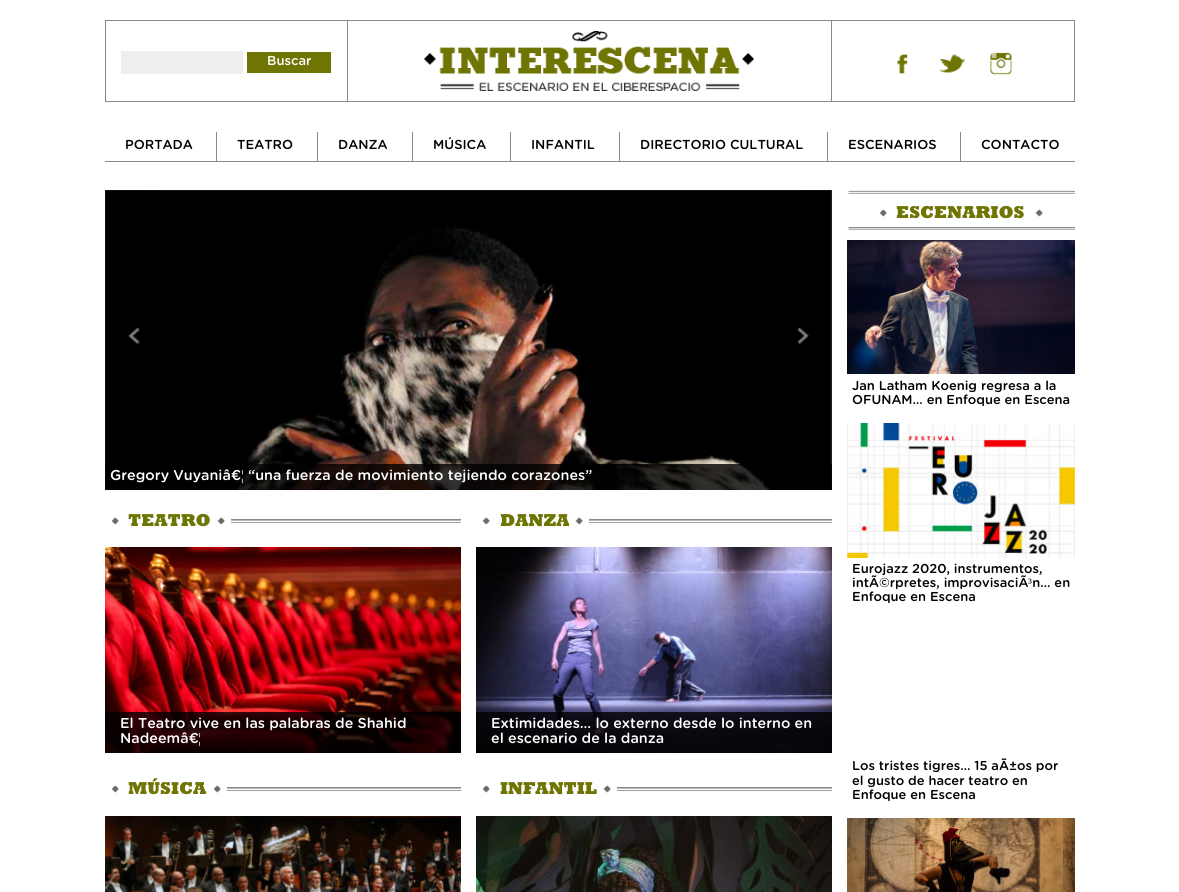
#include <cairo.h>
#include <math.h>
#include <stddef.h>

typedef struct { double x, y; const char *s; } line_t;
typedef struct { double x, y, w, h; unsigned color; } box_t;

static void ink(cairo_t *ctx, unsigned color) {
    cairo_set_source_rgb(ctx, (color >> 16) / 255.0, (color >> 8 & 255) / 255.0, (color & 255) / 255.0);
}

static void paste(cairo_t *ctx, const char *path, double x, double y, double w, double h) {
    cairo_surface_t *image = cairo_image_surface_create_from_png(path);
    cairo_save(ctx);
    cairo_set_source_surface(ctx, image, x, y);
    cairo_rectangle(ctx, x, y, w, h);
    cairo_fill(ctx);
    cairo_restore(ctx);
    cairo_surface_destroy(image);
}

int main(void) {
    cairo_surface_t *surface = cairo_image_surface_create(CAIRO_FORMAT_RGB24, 1179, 892);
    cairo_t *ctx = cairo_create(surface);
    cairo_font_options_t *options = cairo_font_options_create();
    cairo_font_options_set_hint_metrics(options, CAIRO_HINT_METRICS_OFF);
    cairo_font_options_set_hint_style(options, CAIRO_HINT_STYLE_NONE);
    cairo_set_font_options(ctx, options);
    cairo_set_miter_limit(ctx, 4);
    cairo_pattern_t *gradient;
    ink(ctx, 0xFFFFFF);
    cairo_paint(ctx);
    cairo_rectangle(ctx, 105.5, 20.5, 969, 81);
    ink(ctx, 0x898989);
    cairo_set_line_width(ctx, 1);
    cairo_stroke(ctx);
    {
        static const box_t items[] = {
            {347, 21, 1, 80, 0x898989},
            {121, 51, 122, 23, 0xEEEEEE},
            {247, 52, 84, 21, 0x6E7503},
        };
        for (size_t i = 0; i < sizeof items / sizeof *items; i++) {
            ink(ctx, items[i].color);
            cairo_rectangle(ctx, items[i].x, items[i].y, items[i].w, items[i].h);
            cairo_fill(ctx);
        }
    }
    cairo_select_font_face(ctx, "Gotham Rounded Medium", CAIRO_FONT_SLANT_NORMAL, CAIRO_FONT_WEIGHT_NORMAL);
    cairo_set_font_size(ctx, 13);
    ink(ctx, 0xFFFFFF);
    cairo_move_to(ctx, 267, 65);
    cairo_show_text(ctx, "Buscar");
    ink(ctx, 0x898989);
    cairo_rectangle(ctx, 831, 21, 1, 80);
    cairo_fill(ctx);
    paste(ctx, "media/1.png", 424, 31, 330, 60);
    paste(ctx, "media/2.png", 897, 54, 11, 20);
    paste(ctx, "media/3.png", 939, 54, 26, 19);
    paste(ctx, "media/4.png", 990, 52, 22, 23);
    cairo_rectangle(ctx, 105, 161, 970, 1);
    cairo_fill(ctx);
    ink(ctx, 0x000000);
    cairo_move_to(ctx, 125, 149);
    cairo_show_text(ctx, "PORTADA");
    ink(ctx, 0x898989);
    cairo_rectangle(ctx, 216, 132, 1, 29);
    cairo_fill(ctx);
    ink(ctx, 0x000000);
    cairo_move_to(ctx, 237, 149);
    cairo_show_text(ctx, "TEATRO");
    ink(ctx, 0x898989);
    cairo_rectangle(ctx, 317, 132, 1, 29);
    cairo_fill(ctx);
    ink(ctx, 0x000000);
    cairo_move_to(ctx, 338, 149);
    cairo_show_text(ctx, "DANZA");
    ink(ctx, 0x898989);
    cairo_rectangle(ctx, 412, 132, 1, 29);
    cairo_fill(ctx);
    ink(ctx, 0x000000);
    cairo_move_to(ctx, 433, 149);
    cairo_show_text(ctx, "MÚSICA");
    ink(ctx, 0x898989);
    cairo_rectangle(ctx, 510, 132, 1, 29);
    cairo_fill(ctx);
    ink(ctx, 0x000000);
    cairo_move_to(ctx, 531, 149);
    cairo_show_text(ctx, "INFANTIL");
    ink(ctx, 0x898989);
    cairo_rectangle(ctx, 619, 132, 1, 29);
    cairo_fill(ctx);
    ink(ctx, 0x000000);
    cairo_move_to(ctx, 640, 149);
    cairo_show_text(ctx, "DIRECTORIO CULTURAL");
    ink(ctx, 0x898989);
    cairo_rectangle(ctx, 827, 132, 1, 29);
    cairo_fill(ctx);
    ink(ctx, 0x000000);
    cairo_move_to(ctx, 848, 149);
    cairo_show_text(ctx, "ESCENARIOS");
    ink(ctx, 0x898989);
    cairo_rectangle(ctx, 960, 132, 1, 29);
    cairo_fill(ctx);
    ink(ctx, 0x000000);
    cairo_move_to(ctx, 981, 149);
    cairo_show_text(ctx, "CONTACTO");
    ink(ctx, 0x777777);
    cairo_rectangle(ctx, 105, 190, 727, 300);
    cairo_fill(ctx);
    paste(ctx, "media/7.png", 105, 190, 727, 300);
    cairo_set_source_rgba(ctx, 0, 0, 0, 0.8);
    cairo_rectangle(ctx, 105, 464, 727, 26);
    cairo_fill(ctx);
    gradient = cairo_pattern_create_linear(105, 340, 163, 340);
    cairo_pattern_add_color_stop_rgba(gradient, 0, 0, 0, 0, 0.25);
    cairo_pattern_add_color_stop_rgba(gradient, 1, 0, 0, 0, 0);
    cairo_set_source(ctx, gradient);
    cairo_pattern_destroy(gradient);
    cairo_rectangle(ctx, 105, 190, 53, 293);
    cairo_fill(ctx);
    paste(ctx, "media/5.png", 128, 328, 12, 16);
    gradient = cairo_pattern_create_linear(774, 340, 832, 340);
    cairo_pattern_add_color_stop_rgba(gradient, 0, 0, 0, 0, 0);
    cairo_pattern_add_color_stop_rgba(gradient, 1, 0, 0, 0, 0.25);
    cairo_set_source(ctx, gradient);
    cairo_pattern_destroy(gradient);
    cairo_rectangle(ctx, 802, 190, 30, 274);
    cairo_fill(ctx);
    paste(ctx, "media/6.png", 797, 328, 12, 16);
    cairo_set_font_size(ctx, 14.3);
    ink(ctx, 0xFFFFFF);
    cairo_move_to(ctx, 110, 480);
    cairo_show_text(ctx, "Gregory Vuyaniâ€");
    cairo_select_font_face(ctx, "Liberation Serif", CAIRO_FONT_SLANT_NORMAL, CAIRO_FONT_WEIGHT_NORMAL);
    cairo_move_to(ctx, 241, 480);
    cairo_show_text(ctx, "¦");
    cairo_select_font_face(ctx, "Gotham Rounded Medium", CAIRO_FONT_SLANT_NORMAL, CAIRO_FONT_WEIGHT_NORMAL);
    cairo_move_to(ctx, 248, 480);
    cairo_show_text(ctx, "“una fuerza de movimiento tejiendo corazones”");
    paste(ctx, "media/8.png", 231, 519, 230, 4);
    paste(ctx, "media/9.png", 111, 517, 8, 8);
    cairo_select_font_face(ctx, "Rockwell ExtraBold", CAIRO_FONT_SLANT_NORMAL, CAIRO_FONT_WEIGHT_NORMAL);
    cairo_set_font_size(ctx, 17.5);
    ink(ctx, 0x6E7503);
    cairo_move_to(ctx, 128, 526);
    cairo_show_text(ctx, "TEATRO");
    paste(ctx, "media/9.png", 217, 517, 8, 8);
    paste(ctx, "media/10.png", 105, 547, 356, 206);
    cairo_set_source_rgba(ctx, 0, 0, 0, 0.8);
    cairo_rectangle(ctx, 105, 712, 356, 41);
    cairo_fill(ctx);
    cairo_select_font_face(ctx, "Gotham Rounded Medium", CAIRO_FONT_SLANT_NORMAL, CAIRO_FONT_WEIGHT_NORMAL);
    cairo_set_font_size(ctx, 14.3);
    ink(ctx, 0xFFFFFF);
    cairo_move_to(ctx, 120, 728);
    cairo_show_text(ctx, "El Teatro vive en las palabras de Shahid");
    cairo_move_to(ctx, 120, 743);
    cairo_show_text(ctx, "Nadeemâ€");
    cairo_select_font_face(ctx, "Liberation Serif", CAIRO_FONT_SLANT_NORMAL, CAIRO_FONT_WEIGHT_NORMAL);
    cairo_move_to(ctx, 198, 743);
    cairo_show_text(ctx, "¦");
    paste(ctx, "media/11.png", 589, 519, 243, 4);
    paste(ctx, "media/9.png", 482, 517, 8, 8);
    cairo_select_font_face(ctx, "Rockwell ExtraBold", CAIRO_FONT_SLANT_NORMAL, CAIRO_FONT_WEIGHT_NORMAL);
    cairo_set_font_size(ctx, 17.5);
    ink(ctx, 0x6E7503);
    cairo_move_to(ctx, 500, 526);
    cairo_show_text(ctx, "DANZA");
    ink(ctx, 0xFFFFFF);
    cairo_rectangle(ctx, 569, 523, 1, 3);
    cairo_fill(ctx);
    paste(ctx, "media/9.png", 575, 517, 8, 8);
    paste(ctx, "media/12.png", 476, 547, 356, 206);
    cairo_set_source_rgba(ctx, 0, 0, 0, 0.8);
    cairo_rectangle(ctx, 476, 712, 356, 41);
    cairo_fill(ctx);
    cairo_select_font_face(ctx, "Gotham Rounded Medium", CAIRO_FONT_SLANT_NORMAL, CAIRO_FONT_WEIGHT_NORMAL);
    cairo_set_font_size(ctx, 14.3);
    ink(ctx, 0xFFFFFF);
    cairo_move_to(ctx, 491, 728);
    cairo_show_text(ctx, "Extimidades… lo externo desde lo interno en");
    cairo_move_to(ctx, 491, 743);
    cairo_show_text(ctx, "el escenario de la danza");
    paste(ctx, "media/13.png", 227, 787, 234, 4);
    paste(ctx, "media/9.png", 111, 785, 8, 8);
    cairo_select_font_face(ctx, "Rockwell ExtraBold", CAIRO_FONT_SLANT_NORMAL, CAIRO_FONT_WEIGHT_NORMAL);
    cairo_set_font_size(ctx, 17.5);
    ink(ctx, 0x6E7503);
    cairo_move_to(ctx, 128, 794);
    cairo_show_text(ctx, "MÚSICA");
    paste(ctx, "media/9.png", 213, 785, 8, 8);
    paste(ctx, "media/14.png", 105, 816, 356, 76);
    paste(ctx, "media/15.png", 617, 787, 215, 4);
    paste(ctx, "media/9.png", 482, 785, 8, 8);
    cairo_move_to(ctx, 500, 794);
    cairo_show_text(ctx, "INFANTIL");
    paste(ctx, "media/9.png", 603, 785, 8, 8);
    paste(ctx, "media/16.png", 476, 816, 356, 76);
    paste(ctx, "media/17.png", 848, 190, 227, 40);
    paste(ctx, "media/9.png", 879, 209, 8, 8);
    cairo_move_to(ctx, 896, 218);
    cairo_show_text(ctx, "ESCENARIOS");
    paste(ctx, "media/9.png", 1035, 209, 8, 8);
    paste(ctx, "media/18.png", 847, 240, 228, 134);
    cairo_select_font_face(ctx, "Gotham Rounded Medium", CAIRO_FONT_SLANT_NORMAL, CAIRO_FONT_WEIGHT_NORMAL);
    cairo_set_font_size(ctx, 12.9);
    ink(ctx, 0x000000);
    cairo_move_to(ctx, 852, 390);
    cairo_show_text(ctx, "Jan Latham Koenig regresa a la");
    cairo_move_to(ctx, 852, 404);
    cairo_show_text(ctx, "OFUNAM… en Enfoque en Escena");
    paste(ctx, "media/19.png", 847, 423, 228, 135);
    cairo_move_to(ctx, 852, 573);
    cairo_show_text(ctx, "Eurojazz 2020, instrumentos,");
    cairo_move_to(ctx, 852, 587);
    cairo_show_text(ctx, "intÃ©rpretes, improvisaciÃ n… en");
    cairo_select_font_face(ctx, "Liberation Serif", CAIRO_FONT_SLANT_NORMAL, CAIRO_FONT_WEIGHT_NORMAL);
    cairo_move_to(ctx, 1028, 587);
    cairo_show_text(ctx, "³");
    cairo_select_font_face(ctx, "Gotham Rounded Medium", CAIRO_FONT_SLANT_NORMAL, CAIRO_FONT_WEIGHT_NORMAL);
    {
        static const line_t items[] = {
            {852, 601, "Enfoque en Escena"},
            {852, 770, "Los tristes tigres… 15 aÃ±os por"},
            {852, 785, "el gusto de hacer teatro en"},
            {852, 799, "Enfoque en Escena"},
        };
        for (size_t i = 0; i < sizeof items / sizeof *items; i++) {
            cairo_move_to(ctx, items[i].x, items[i].y);
            cairo_show_text(ctx, items[i].s);
        }
    }
    paste(ctx, "media/20.png", 847, 818, 228, 74);
    cairo_surface_write_to_png(surface, "image.png");
    cairo_font_options_destroy(options);
    cairo_destroy(ctx);
    cairo_surface_destroy(surface);
    return 0;
}
